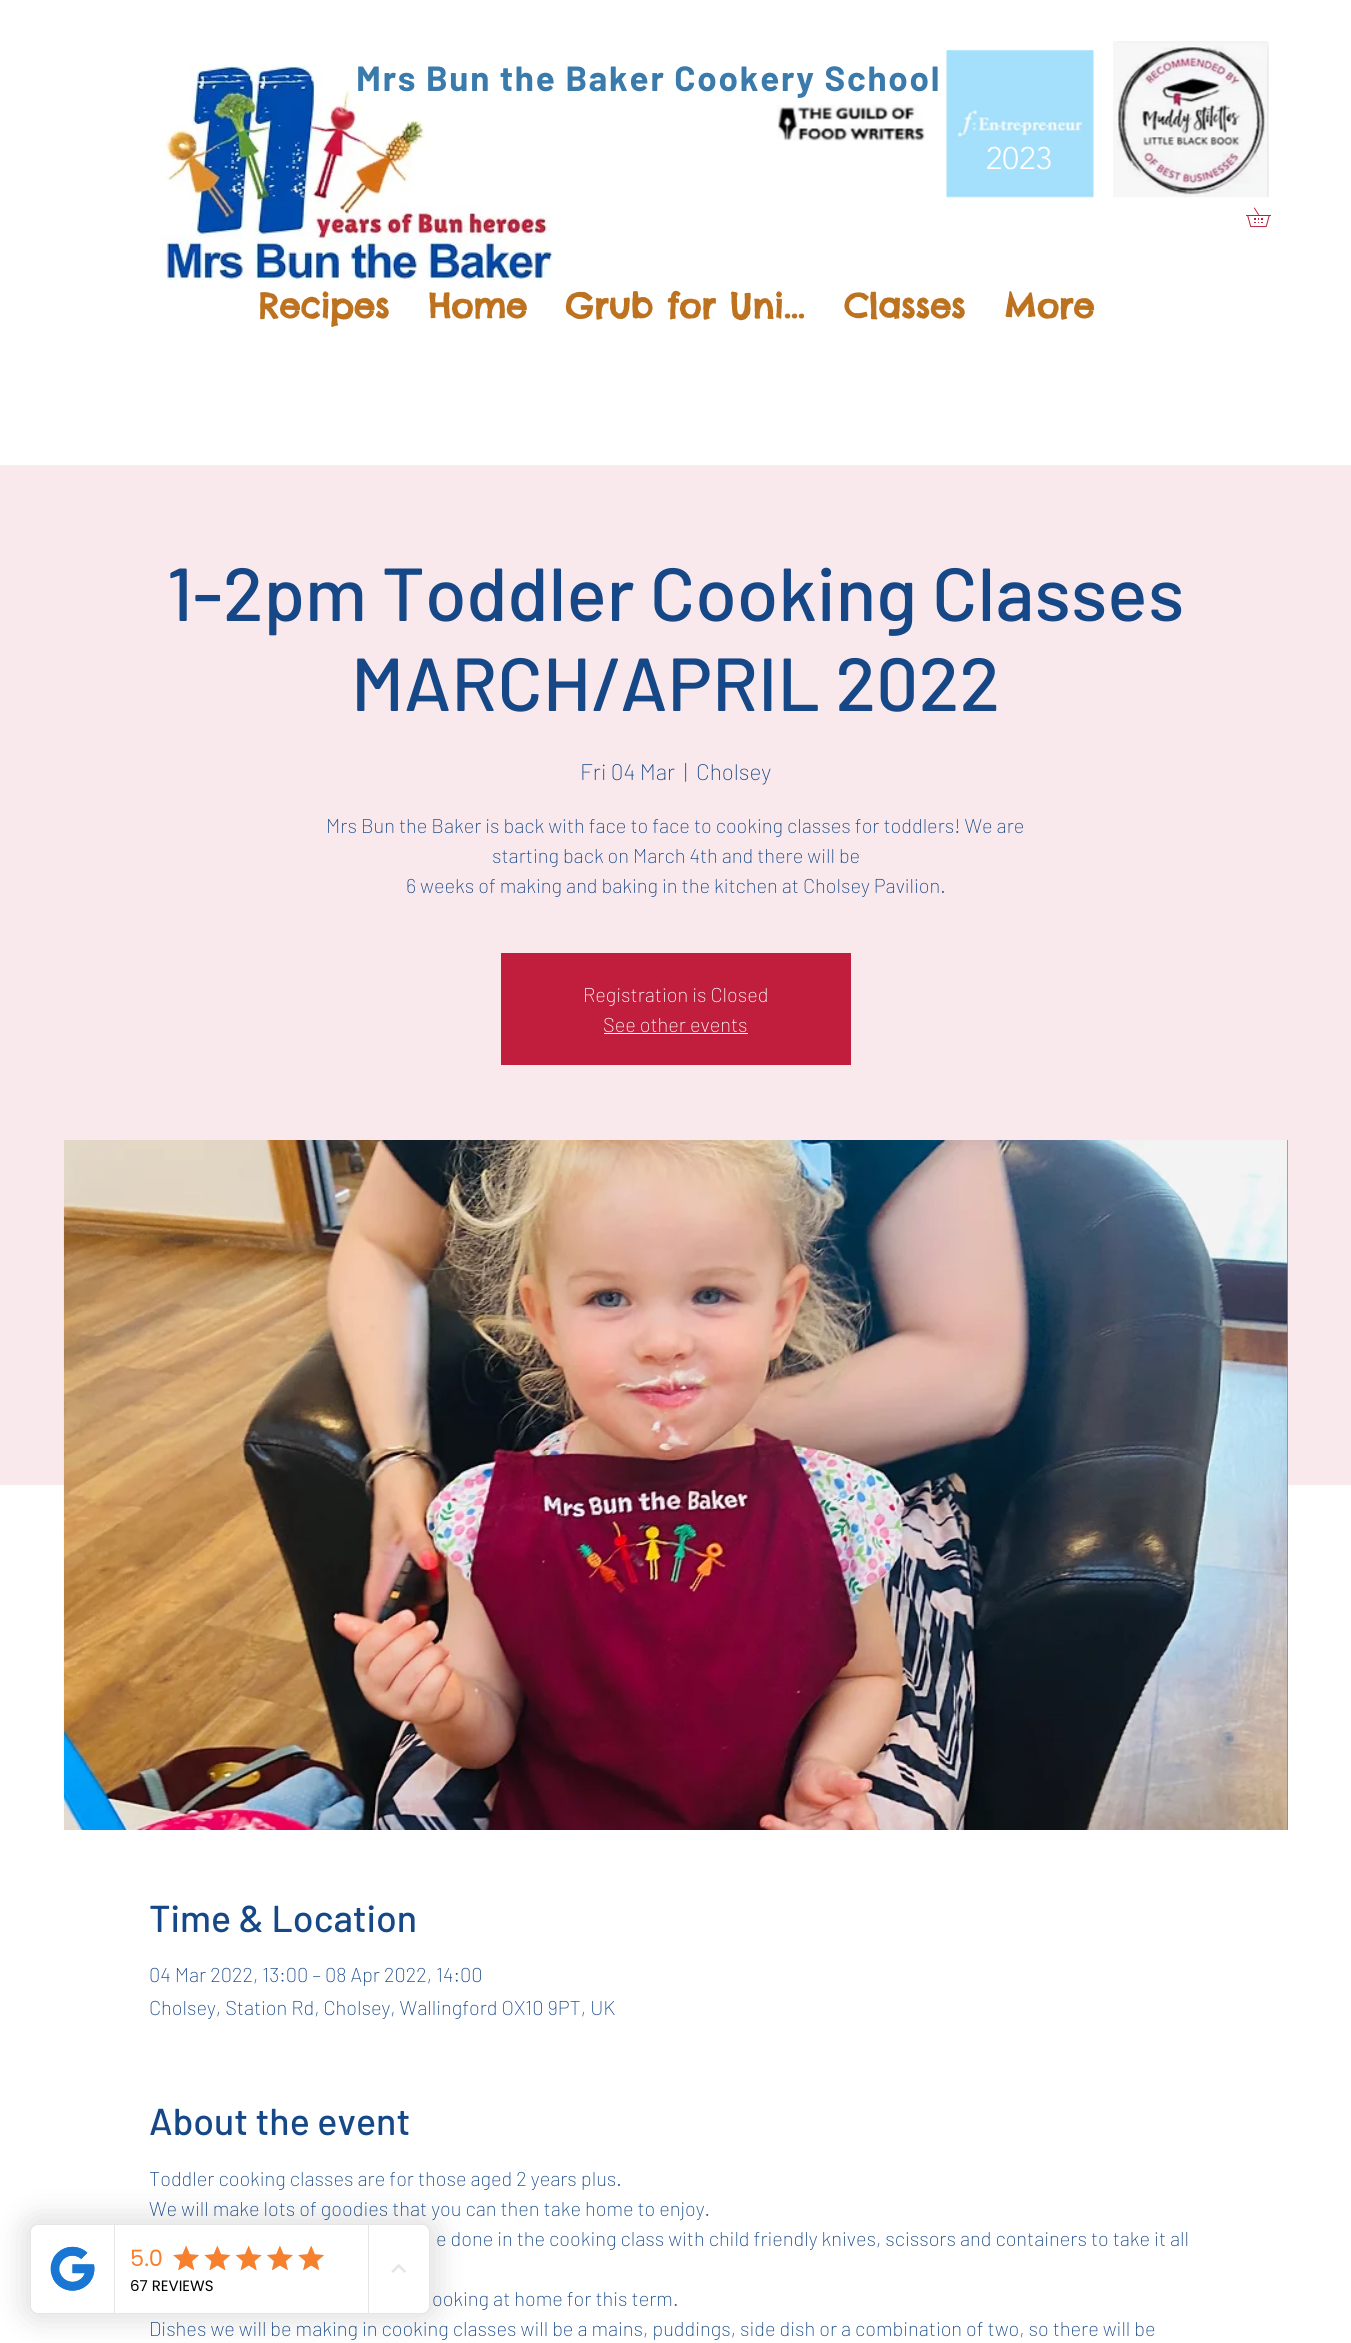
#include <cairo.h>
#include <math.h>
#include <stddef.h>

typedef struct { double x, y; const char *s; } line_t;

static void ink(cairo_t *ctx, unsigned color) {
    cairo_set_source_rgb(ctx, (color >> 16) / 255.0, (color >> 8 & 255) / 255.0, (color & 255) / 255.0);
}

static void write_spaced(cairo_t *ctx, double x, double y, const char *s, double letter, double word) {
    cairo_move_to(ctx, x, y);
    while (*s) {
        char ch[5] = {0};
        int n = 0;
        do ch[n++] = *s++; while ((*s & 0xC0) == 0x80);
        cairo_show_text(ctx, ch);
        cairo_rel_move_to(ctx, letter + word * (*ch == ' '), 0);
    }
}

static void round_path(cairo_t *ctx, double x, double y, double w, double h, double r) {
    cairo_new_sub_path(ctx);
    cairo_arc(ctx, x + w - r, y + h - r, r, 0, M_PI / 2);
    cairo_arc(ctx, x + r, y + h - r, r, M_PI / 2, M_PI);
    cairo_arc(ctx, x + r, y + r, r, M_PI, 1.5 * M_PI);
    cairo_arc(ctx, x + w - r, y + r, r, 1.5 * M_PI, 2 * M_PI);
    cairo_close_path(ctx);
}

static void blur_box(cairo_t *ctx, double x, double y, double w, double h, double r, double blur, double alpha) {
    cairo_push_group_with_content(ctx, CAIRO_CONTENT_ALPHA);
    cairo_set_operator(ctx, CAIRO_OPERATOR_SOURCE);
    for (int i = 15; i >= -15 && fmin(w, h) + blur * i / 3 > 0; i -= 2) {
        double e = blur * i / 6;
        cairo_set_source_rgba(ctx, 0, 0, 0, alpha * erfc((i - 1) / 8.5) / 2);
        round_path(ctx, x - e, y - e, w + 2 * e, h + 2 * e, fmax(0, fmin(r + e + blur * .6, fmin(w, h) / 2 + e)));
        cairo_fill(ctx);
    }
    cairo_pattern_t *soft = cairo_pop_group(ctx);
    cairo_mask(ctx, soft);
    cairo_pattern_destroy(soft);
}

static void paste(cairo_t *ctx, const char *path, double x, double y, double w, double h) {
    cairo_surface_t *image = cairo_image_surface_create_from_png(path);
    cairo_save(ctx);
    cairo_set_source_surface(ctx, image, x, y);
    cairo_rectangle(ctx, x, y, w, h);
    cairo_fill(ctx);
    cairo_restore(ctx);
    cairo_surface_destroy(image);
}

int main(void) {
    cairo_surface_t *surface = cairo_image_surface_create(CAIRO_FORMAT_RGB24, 1351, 2343);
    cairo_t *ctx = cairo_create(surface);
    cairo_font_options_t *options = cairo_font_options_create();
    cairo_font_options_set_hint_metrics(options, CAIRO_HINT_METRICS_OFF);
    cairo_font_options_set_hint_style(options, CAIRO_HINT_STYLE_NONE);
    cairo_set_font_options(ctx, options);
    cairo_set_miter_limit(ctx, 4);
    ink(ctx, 0xFFFFFF);
    cairo_paint(ctx);
    paste(ctx, "media/1.png", 161, 65, 391, 215);
    cairo_select_font_face(ctx, "Barlow", CAIRO_FONT_SLANT_NORMAL, CAIRO_FONT_WEIGHT_BOLD);
    cairo_set_font_size(ctx, 35);
    ink(ctx, 0x3B7BAC);
    write_spaced(ctx, 356, 91, "Mrs Bun the Baker Cookery School", 1.75, 0);
    paste(ctx, "media/2.png", 946, 49, 148, 149);
    paste(ctx, "media/3.png", 1113, 41, 156, 157);
    paste(ctx, "media/4.png", 777, 105, 148, 36);
    cairo_select_font_face(ctx, "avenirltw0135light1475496 Light", CAIRO_FONT_SLANT_NORMAL, CAIRO_FONT_WEIGHT_NORMAL);
    cairo_set_font_size(ctx, 31);
    ink(ctx, 0xFFFFFF);
    write_spaced(ctx, 986, 169, "2023", 0.5, 0);
    paste(ctx, "media/5.png", 1246, 207, 25, 21);
    cairo_select_font_face(ctx, "Chelsea Market", CAIRO_FONT_SLANT_NORMAL, CAIRO_FONT_WEIGHT_BOLD);
    cairo_set_font_size(ctx, 33.75);
    ink(ctx, 0xBD721F);
    {
        static const line_t items[] = {
            {258, 318, "Recipes"},
            {428, 318, "Home"},
            {565, 318, "Grub for Uni..."},
            {844, 318, "Classes"},
            {1004, 318, "More"},
        };
        for (size_t i = 0; i < sizeof items / sizeof *items; i++) {
            cairo_move_to(ctx, items[i].x, items[i].y);
            cairo_show_text(ctx, items[i].s);
        }
    }
    ink(ctx, 0xFAE9EC);
    cairo_rectangle(ctx, 0, 465, 1351, 1020);
    cairo_fill(ctx);
    cairo_select_font_face(ctx, "Barlow Medium", CAIRO_FONT_SLANT_NORMAL, CAIRO_FONT_WEIGHT_NORMAL);
    cairo_set_font_size(ctx, 75);
    ink(ctx, 0x164888);
    cairo_move_to(ctx, 167, 621);
    cairo_show_text(ctx, "1-2pm Toddler Cooking Classes");
    cairo_move_to(ctx, 351, 711);
    cairo_show_text(ctx, "MARCH/APRIL 2022");
    cairo_select_font_face(ctx, "Barlow ExtraLight", CAIRO_FONT_SLANT_NORMAL, CAIRO_FONT_WEIGHT_NORMAL);
    cairo_set_font_size(ctx, 22.5);
    {
        static const line_t items[] = {
            {580, 780, "Fri 04 Mar"},
            {684, 780, "|"},
            {696, 780, "Cholsey"},
        };
        for (size_t i = 0; i < sizeof items / sizeof *items; i++) {
            cairo_move_to(ctx, items[i].x, items[i].y);
            cairo_show_text(ctx, items[i].s);
        }
    }
    cairo_set_font_size(ctx, 20);
    {
        static const line_t items[] = {
            {326, 833, "Mrs Bun the Baker is back with face to face to cooking classes for toddlers! We are"},
            {492, 863, "starting back on March 4th and there will be"},
            {406, 893, "6 weeks of making and baking in the kitchen at Cholsey Pavilion."},
        };
        for (size_t i = 0; i < sizeof items / sizeof *items; i++) {
            cairo_move_to(ctx, items[i].x, items[i].y);
            cairo_show_text(ctx, items[i].s);
        }
    }
    ink(ctx, 0xC01E3C);
    cairo_rectangle(ctx, 501, 953, 350, 112);
    cairo_fill(ctx);
    ink(ctx, 0xFFFFFF);
    cairo_move_to(ctx, 583, 1002);
    cairo_show_text(ctx, "Registration is Closed");
    cairo_move_to(ctx, 603, 1032);
    cairo_show_text(ctx, "See other events");
    cairo_rectangle(ctx, 604, 1033, 144, 1);
    cairo_fill(ctx);
    ink(ctx, 0xE55973);
    cairo_rectangle(ctx, 1287, 1140, 1, 690);
    cairo_fill(ctx);
    paste(ctx, "media/6.png", 63, 1140, 1225, 690);
    cairo_select_font_face(ctx, "Barlow Medium", CAIRO_FONT_SLANT_NORMAL, CAIRO_FONT_WEIGHT_NORMAL);
    cairo_set_font_size(ctx, 37.5);
    ink(ctx, 0x164888);
    cairo_move_to(ctx, 149, 1932);
    cairo_show_text(ctx, "Time & Location");
    cairo_select_font_face(ctx, "Barlow ExtraLight", CAIRO_FONT_SLANT_NORMAL, CAIRO_FONT_WEIGHT_NORMAL);
    cairo_set_font_size(ctx, 20);
    cairo_move_to(ctx, 149, 1982);
    cairo_show_text(ctx, "04 Mar 2022, 13:00 – 08 Apr 2022, 14:00");
    cairo_move_to(ctx, 149, 2015);
    cairo_show_text(ctx, "Cholsey, Station Rd, Cholsey, Wallingford OX10 9PT, UK");
    cairo_select_font_face(ctx, "Barlow Medium", CAIRO_FONT_SLANT_NORMAL, CAIRO_FONT_WEIGHT_NORMAL);
    cairo_set_font_size(ctx, 37.5);
    cairo_move_to(ctx, 149, 2135);
    cairo_show_text(ctx, "About the event");
    cairo_select_font_face(ctx, "Barlow ExtraLight", CAIRO_FONT_SLANT_NORMAL, CAIRO_FONT_WEIGHT_NORMAL);
    cairo_set_font_size(ctx, 20);
    {
        static const line_t items[] = {
            {149, 2186, "Toddler cooking classes are for those aged 2 years plus."},
            {149, 2216, "We will make lots of goodies that you can then take home to enjoy."},
            {436, 2246, "e done in the cooking class with child friendly knives, scissors and containers to take it all"},
            {432, 2306, "ooking at home for this term."},
            {149, 2336, "Dishes we will be making in cooking classes will be a mains, puddings, side dish or a combination of two, so there will be"},
        };
        for (size_t i = 0; i < sizeof items / sizeof *items; i++) {
            cairo_move_to(ctx, items[i].x, items[i].y);
            cairo_show_text(ctx, items[i].s);
        }
    }
    ink(ctx, 0x000000);
    blur_box(ctx, 23, 2216, 415, 105, 15, 15, 0.12);
    ink(ctx, 0xFFFFFF);
    round_path(ctx, 30.5, 2224.5, 399, 89, 7.5);
    cairo_fill_preserve(ctx);
    ink(ctx, 0xE5E5E5);
    cairo_set_line_width(ctx, 1);
    cairo_stroke(ctx);
    ink(ctx, 0xFFFFFF);
    cairo_new_path(ctx);
    cairo_move_to(ctx, 39, 2225);
    cairo_line_to(ctx, 115, 2225);
    cairo_line_to(ctx, 115, 2313);
    cairo_line_to(ctx, 39, 2313);
    cairo_curve_to(ctx, 34.5, 2313, 31, 2309.5, 31, 2305);
    cairo_line_to(ctx, 31, 2233);
    cairo_curve_to(ctx, 31, 2228.5, 34.5, 2225, 39, 2225);
    cairo_close_path(ctx);
    cairo_fill(ctx);
    ink(ctx, 0xE5E5E5);
    cairo_rectangle(ctx, 114, 2225, 1, 88);
    cairo_fill(ctx);
    paste(ctx, "media/7.png", 50, 2246, 45, 45);
    cairo_rectangle(ctx, 368, 2225, 1, 88);
    cairo_fill(ctx);
    cairo_select_font_face(ctx, "Poppins", CAIRO_FONT_SLANT_NORMAL, CAIRO_FONT_WEIGHT_NORMAL);
    cairo_set_font_size(ctx, 22.5);
    ink(ctx, 0xF7802F);
    cairo_move_to(ctx, 130, 2266);
    cairo_show_text(ctx, "5.0");
    paste(ctx, "media/9.png", 173, 2246, 26, 24);
    paste(ctx, "media/8.png", 173, 2245, 26, 26);
    paste(ctx, "media/11.png", 204, 2246, 26, 24);
    paste(ctx, "media/10.png", 204, 2245, 27, 26);
    paste(ctx, "media/13.png", 236, 2246, 26, 24);
    paste(ctx, "media/12.png", 235, 2245, 27, 26);
    paste(ctx, "media/15.png", 267, 2246, 26, 24);
    paste(ctx, "media/14.png", 267, 2245, 26, 26);
    paste(ctx, "media/9.png", 298, 2246, 26, 24);
    paste(ctx, "media/8.png", 298, 2245, 26, 26);
    cairo_set_font_size(ctx, 15);
    ink(ctx, 0x000000);
    cairo_move_to(ctx, 130, 2291);
    cairo_show_text(ctx, "67 REVIEWS");
    paste(ctx, "media/16.png", 391, 2264, 15, 9);
    cairo_surface_write_to_png(surface, "image.png");
    cairo_font_options_destroy(options);
    cairo_destroy(ctx);
    cairo_surface_destroy(surface);
    return 0;
}
